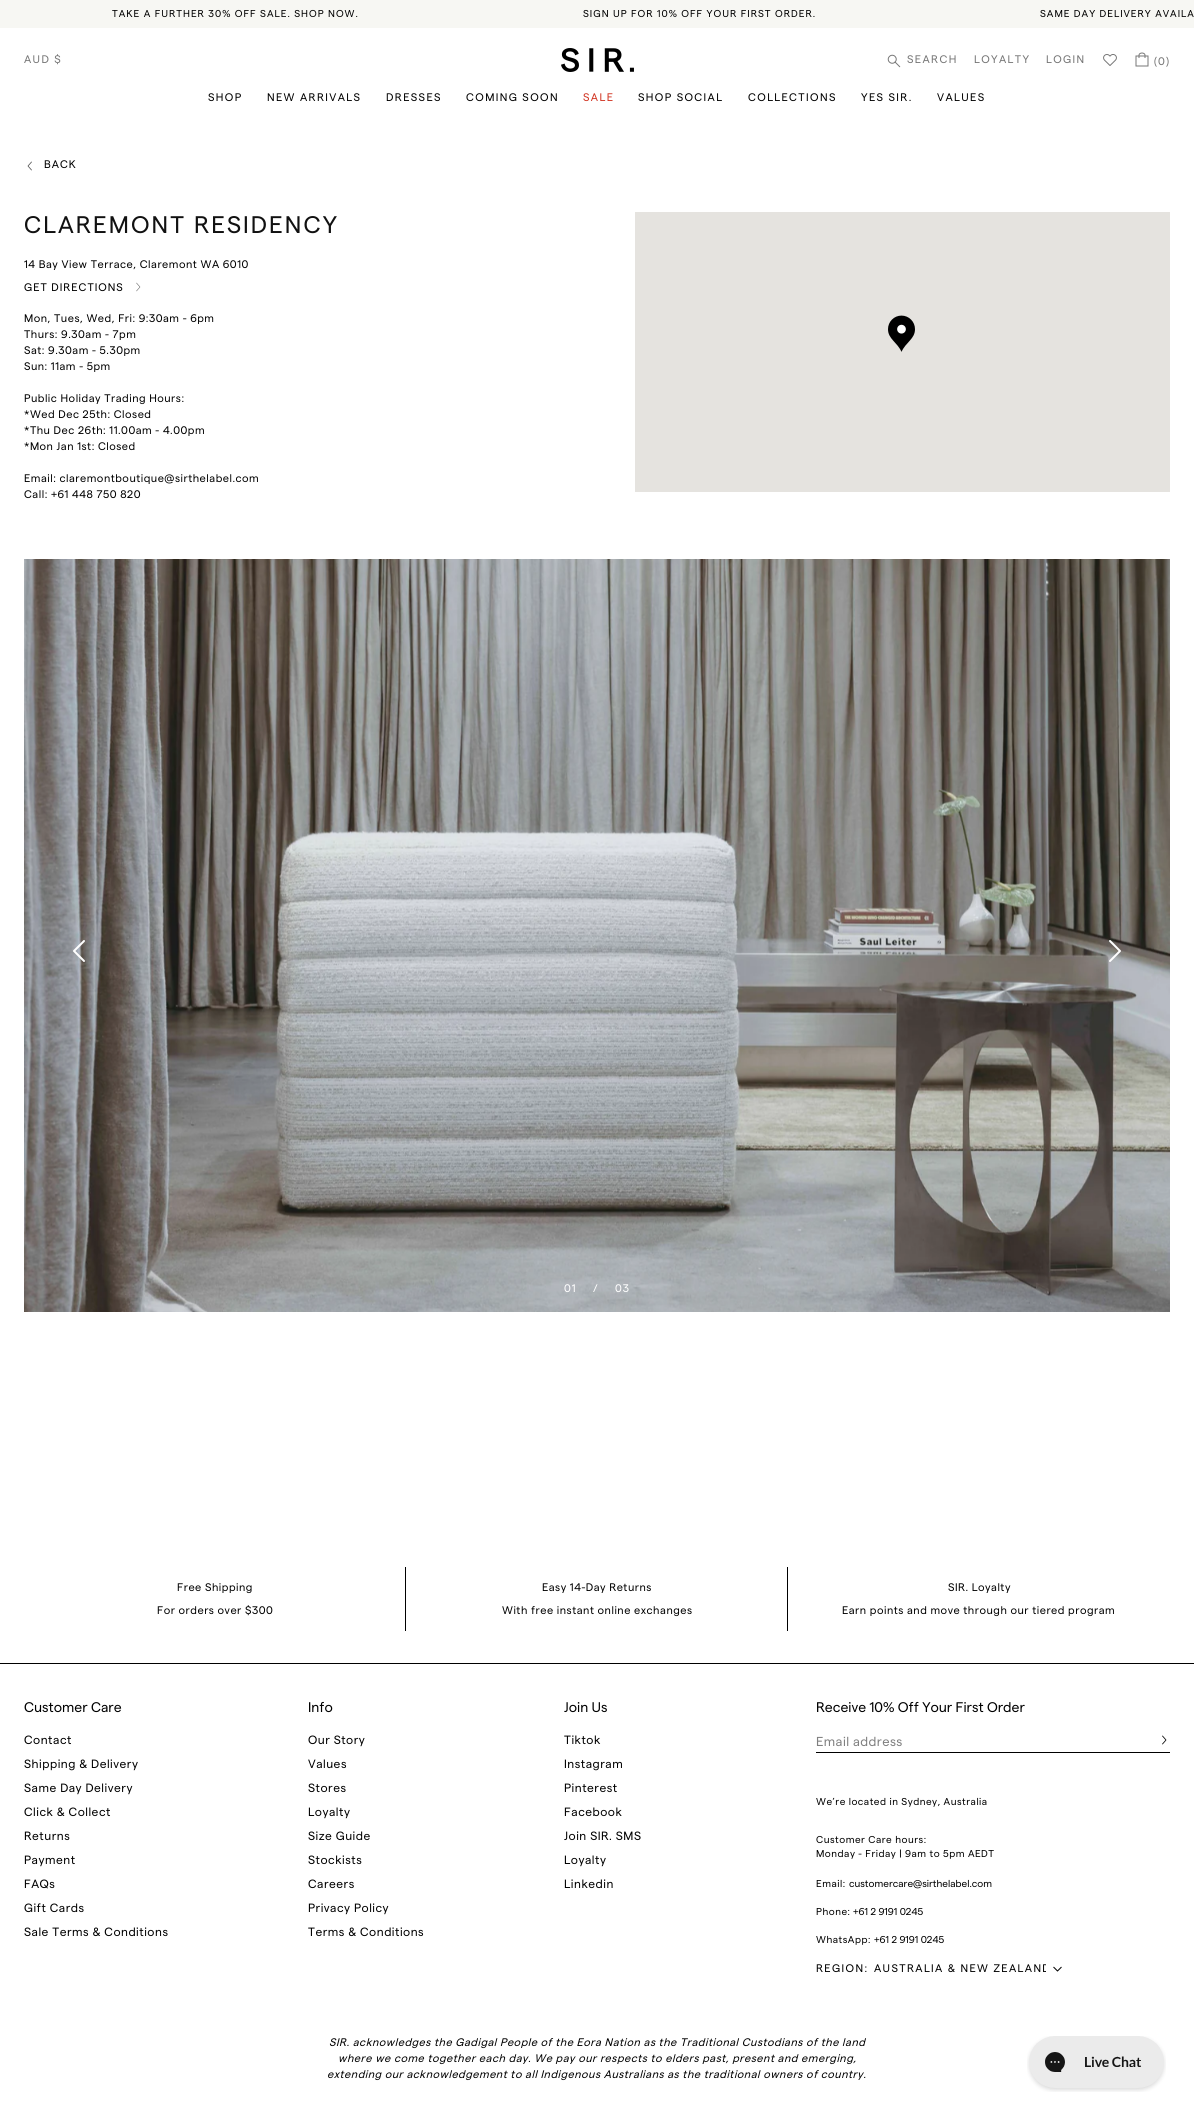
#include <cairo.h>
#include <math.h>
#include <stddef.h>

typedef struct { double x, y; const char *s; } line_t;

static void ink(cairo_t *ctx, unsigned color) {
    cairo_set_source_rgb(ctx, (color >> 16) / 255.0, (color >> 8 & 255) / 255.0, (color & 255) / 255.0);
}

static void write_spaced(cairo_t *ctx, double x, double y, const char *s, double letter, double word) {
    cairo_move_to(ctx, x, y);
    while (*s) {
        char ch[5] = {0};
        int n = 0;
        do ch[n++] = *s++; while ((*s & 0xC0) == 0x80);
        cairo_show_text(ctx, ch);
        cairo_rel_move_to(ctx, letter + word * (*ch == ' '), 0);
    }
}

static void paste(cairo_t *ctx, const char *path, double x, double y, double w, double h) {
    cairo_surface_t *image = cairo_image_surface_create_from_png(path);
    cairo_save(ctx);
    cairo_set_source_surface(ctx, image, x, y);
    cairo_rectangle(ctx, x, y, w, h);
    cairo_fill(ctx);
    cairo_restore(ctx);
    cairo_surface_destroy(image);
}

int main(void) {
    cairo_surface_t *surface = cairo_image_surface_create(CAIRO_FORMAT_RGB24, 1194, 2115);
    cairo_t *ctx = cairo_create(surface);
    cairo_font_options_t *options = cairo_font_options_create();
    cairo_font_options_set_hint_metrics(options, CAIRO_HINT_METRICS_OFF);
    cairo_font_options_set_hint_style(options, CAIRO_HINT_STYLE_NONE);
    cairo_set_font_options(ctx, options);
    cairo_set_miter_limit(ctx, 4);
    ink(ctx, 0xFFFFFF);
    cairo_paint(ctx);
    ink(ctx, 0xF7F7F3);
    cairo_rectangle(ctx, 0, 0, 1194, 28);
    cairo_fill(ctx);
    cairo_select_font_face(ctx, "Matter", CAIRO_FONT_SLANT_NORMAL, CAIRO_FONT_WEIGHT_NORMAL);
    cairo_set_font_size(ctx, 10);
    ink(ctx, 0x000000);
    {
        static const line_t items[] = {
            {112, 17, "TAKE A FURTHER 30% OFF SALE. SHOP NOW."},
            {583, 17, "SIGN UP FOR 10% OFF YOUR FIRST ORDER."},
            {1040, 17, "SAME DAY DELIVERY AVAILA"},
        };
        for (size_t i = 0; i < sizeof items / sizeof *items; i++) {
            write_spaced(ctx, items[i].x, items[i].y, items[i].s, 1, 0);
        }
    }
    cairo_set_font_size(ctx, 11);
    ink(ctx, 0x777777);
    write_spaced(ctx, 24, 63, "AUD $", 1.4, 0);
    paste(ctx, "media/1.png", 561, 48, 73, 24);
    paste(ctx, "media/2.png", 887, 54, 14, 14);
    {
        static const line_t items[] = {
            {907, 63, "SEARCH"},
            {974, 63, "LOYALTY"},
            {1046, 63, "LOGIN"},
        };
        for (size_t i = 0; i < sizeof items / sizeof *items; i++) {
            write_spaced(ctx, items[i].x, items[i].y, items[i].s, 1.4, 0);
        }
    }
    paste(ctx, "media/3.png", 1103, 54, 14, 12);
    paste(ctx, "media/4.png", 1135, 52, 14, 15);
    {
        static const line_t items[] = {
            {1154, 65, "("},
            {1158, 65, "0"},
            {1166, 65, ")"},
        };
        for (size_t i = 0; i < sizeof items / sizeof *items; i++) {
            write_spaced(ctx, items[i].x, items[i].y, items[i].s, 1.4, 0);
        }
    }
    ink(ctx, 0x000000);
    {
        static const line_t items[] = {
            {208, 101, "SHOP"},
            {267, 101, "NEW ARRIVALS"},
            {386, 101, "DRESSES"},
            {466, 101, "COMING SOON"},
        };
        for (size_t i = 0; i < sizeof items / sizeof *items; i++) {
            write_spaced(ctx, items[i].x, items[i].y, items[i].s, 1.4, 0);
        }
    }
    ink(ctx, 0xD13422);
    write_spaced(ctx, 583, 101, "SALE", 1.4, 0);
    ink(ctx, 0x000000);
    {
        static const line_t items[] = {
            {638, 101, "SHOP SOCIAL"},
            {748, 101, "COLLECTIONS"},
            {861, 101, "YES SIR."},
            {937, 101, "VALUES"},
        };
        for (size_t i = 0; i < sizeof items / sizeof *items; i++) {
            write_spaced(ctx, items[i].x, items[i].y, items[i].s, 1.4, 0);
        }
    }
    cairo_new_path(ctx);
    cairo_move_to(ctx, 31.5, 170);
    cairo_line_to(ctx, 28, 166);
    cairo_line_to(ctx, 31.5, 162);
    ink(ctx, 0x555555);
    cairo_set_line_width(ctx, 0.8);
    cairo_set_line_cap(ctx, CAIRO_LINE_CAP_ROUND);
    cairo_set_line_join(ctx, CAIRO_LINE_JOIN_ROUND);
    cairo_stroke(ctx);
    ink(ctx, 0x000000);
    write_spaced(ctx, 44, 168, "BACK", 1, 0);
    cairo_set_font_size(ctx, 24);
    ink(ctx, 0x111111);
    write_spaced(ctx, 24, 233, "CLAREMONT RESIDENCY", 2.1, 0);
    cairo_set_font_size(ctx, 11);
    ink(ctx, 0x000000);
    write_spaced(ctx, 24, 268, "14 Bay View Terrace, Claremont WA 6010", 0.5, 0);
    write_spaced(ctx, 24, 291, "GET DIRECTIONS", 1, 0);
    cairo_new_path(ctx);
    cairo_move_to(ctx, 136.5, 283);
    cairo_line_to(ctx, 140, 287);
    cairo_line_to(ctx, 136.5, 291);
    ink(ctx, 0x555555);
    cairo_set_line_width(ctx, 0.5);
    cairo_stroke(ctx);
    ink(ctx, 0x000000);
    {
        static const line_t items[] = {
            {24, 322, "Mon, Tues, Wed, Fri: 9:30am - 6pm"},
            {24, 338, "Thurs: 9.30am - 7pm"},
            {24, 354, "Sat: 9.30am - 5.30pm"},
            {24, 370, "Sun: 11am - 5pm"},
            {24, 402, "Public Holiday Trading Hours:"},
            {24, 418, "*Wed Dec 25th: Closed"},
            {24, 434, "*Thu Dec 26th: 11.00am - 4.00pm"},
            {24, 450, "*Mon Jan 1st: Closed"},
            {24, 482, "Email: claremontboutique@sirthelabel.com"},
            {24, 498, "Call: +61 448 750 820"},
        };
        for (size_t i = 0; i < sizeof items / sizeof *items; i++) {
            write_spaced(ctx, items[i].x, items[i].y, items[i].s, 0.5, 0);
        }
    }
    ink(ctx, 0xE5E3DF);
    cairo_rectangle(ctx, 635, 212, 535, 280);
    cairo_fill(ctx);
    paste(ctx, "media/5.png", 888, 315, 27, 37);
    paste(ctx, "media/6.png", 24, 559, 1146, 753);
    cairo_new_path(ctx);
    cairo_move_to(ctx, 84, 961);
    cairo_line_to(ctx, 74, 951);
    cairo_line_to(ctx, 84, 941);
    ink(ctx, 0xFFFFFF);
    cairo_set_line_width(ctx, 2);
    cairo_stroke(ctx);
    cairo_new_path(ctx);
    cairo_move_to(ctx, 1110, 941);
    cairo_line_to(ctx, 1120, 951);
    cairo_line_to(ctx, 1110, 961);
    cairo_stroke(ctx);
    {
        static const line_t items[] = {
            {564, 1292, "01"},
            {593, 1292, "/"},
            {615, 1292, "03"},
        };
        for (size_t i = 0; i < sizeof items / sizeof *items; i++) {
            write_spaced(ctx, items[i].x, items[i].y, items[i].s, 1, 0);
        }
    }
    ink(ctx, 0x000000);
    write_spaced(ctx, 177, 1591, "Free Shipping", 0.5, 0);
    cairo_rectangle(ctx, 405, 1567, 1, 64);
    cairo_fill(ctx);
    write_spaced(ctx, 157, 1614, "For orders over $300", 0.5, 0);
    write_spaced(ctx, 542, 1591, "Easy 14-Day Returns", 0.5, 0);
    cairo_rectangle(ctx, 787, 1567, 1, 64);
    cairo_fill(ctx);
    {
        static const line_t items[] = {
            {502, 1614, "With free instant online exchanges"},
            {948, 1591, "SIR. Loyalty"},
            {842, 1614, "Earn points and move through our tiered program"},
        };
        for (size_t i = 0; i < sizeof items / sizeof *items; i++) {
            write_spaced(ctx, items[i].x, items[i].y, items[i].s, 0.5, 0);
        }
    }
    cairo_rectangle(ctx, 0, 1663, 1194, 1);
    cairo_fill(ctx);
    cairo_set_font_size(ctx, 14);
    cairo_move_to(ctx, 24, 1712);
    cairo_show_text(ctx, "Customer Care");
    cairo_set_font_size(ctx, 12);
    {
        static const line_t items[] = {
            {24, 1744, "Contact"},
            {24, 1768, "Shipping & Delivery"},
            {24, 1792, "Same Day Delivery"},
            {24, 1816, "Click & Collect"},
            {24, 1840, "Returns"},
            {24, 1864, "Payment"},
            {24, 1888, "FAQs"},
            {24, 1912, "Gift Cards"},
            {24, 1936, "Sale Terms & Conditions"},
        };
        for (size_t i = 0; i < sizeof items / sizeof *items; i++) {
            write_spaced(ctx, items[i].x, items[i].y, items[i].s, 0.5, 0);
        }
    }
    cairo_set_font_size(ctx, 14);
    cairo_move_to(ctx, 308, 1712);
    cairo_show_text(ctx, "Info");
    cairo_set_font_size(ctx, 12);
    {
        static const line_t items[] = {
            {308, 1744, "Our Story"},
            {308, 1768, "Values"},
            {308, 1792, "Stores"},
            {308, 1816, "Loyalty"},
            {308, 1840, "Size Guide"},
            {308, 1864, "Stockists"},
            {308, 1888, "Careers"},
            {308, 1912, "Privacy Policy"},
            {308, 1936, "Terms & Conditions"},
        };
        for (size_t i = 0; i < sizeof items / sizeof *items; i++) {
            write_spaced(ctx, items[i].x, items[i].y, items[i].s, 0.5, 0);
        }
    }
    cairo_set_font_size(ctx, 14);
    cairo_move_to(ctx, 564, 1712);
    cairo_show_text(ctx, "Join Us");
    cairo_set_font_size(ctx, 12);
    {
        static const line_t items[] = {
            {564, 1744, "Tiktok"},
            {564, 1768, "Instagram"},
            {564, 1792, "Pinterest"},
            {564, 1816, "Facebook"},
            {564, 1840, "Join SIR. SMS"},
            {564, 1864, "Loyalty"},
            {564, 1888, "Linkedin"},
        };
        for (size_t i = 0; i < sizeof items / sizeof *items; i++) {
            write_spaced(ctx, items[i].x, items[i].y, items[i].s, 0.5, 0);
        }
    }
    cairo_set_font_size(ctx, 14);
    cairo_move_to(ctx, 816, 1712);
    cairo_show_text(ctx, "Receive 10% Off Your First Order");
    cairo_rectangle(ctx, 816, 1752, 354, 1);
    cairo_fill(ctx);
    cairo_set_font_size(ctx, 13);
    ink(ctx, 0x808080);
    write_spaced(ctx, 816, 1746, "Email address", 0.4, 0);
    cairo_new_path(ctx);
    cairo_move_to(ctx, 1162.5, 1736);
    cairo_line_to(ctx, 1166, 1740);
    cairo_line_to(ctx, 1162.5, 1744);
    ink(ctx, 0x000000);
    cairo_set_line_width(ctx, 0.8);
    cairo_stroke(ctx);
    cairo_set_font_size(ctx, 10);
    {
        static const line_t items[] = {
            {816, 1805, "We’re located in Sydney, Australia"},
            {816, 1843, "Customer Care hours:"},
            {816, 1857, "Monday - Friday | 9am to 5pm AEDT"},
            {816, 1887, "Email:"},
        };
        for (size_t i = 0; i < sizeof items / sizeof *items; i++) {
            write_spaced(ctx, items[i].x, items[i].y, items[i].s, 0.5, 0);
        }
    }
    cairo_move_to(ctx, 849, 1887);
    cairo_show_text(ctx, "customercare@sirthelabel.com");
    write_spaced(ctx, 816, 1915, "Phone:", 0.5, 0);
    cairo_move_to(ctx, 853, 1915);
    cairo_show_text(ctx, "+61 2 9191 0245");
    write_spaced(ctx, 816, 1943, "WhatsApp:", 0.5, 0);
    cairo_move_to(ctx, 874, 1943);
    cairo_show_text(ctx, "+61 2 9191 0245");
    cairo_set_font_size(ctx, 11);
    write_spaced(ctx, 816, 1972, "REGION:", 1.4, 0);
    cairo_save(ctx);
    cairo_new_path(ctx);
    cairo_move_to(ctx, 1053, 1966.5);
    cairo_line_to(ctx, 1062, 1966.5);
    cairo_line_to(ctx, 1062, 1971.5);
    cairo_line_to(ctx, 1053, 1971.5);
    cairo_close_path(ctx);
    cairo_clip(ctx);
    cairo_new_path(ctx);
    cairo_move_to(ctx, 1053.5, 1967);
    cairo_line_to(ctx, 1057.5, 1971);
    cairo_line_to(ctx, 1061.5, 1967);
    cairo_set_line_width(ctx, 1);
    cairo_set_line_cap(ctx, CAIRO_LINE_CAP_BUTT);
    cairo_set_line_join(ctx, CAIRO_LINE_JOIN_MITER);
    cairo_stroke(ctx);
    cairo_restore(ctx);
    cairo_save(ctx);
    cairo_rectangle(ctx, 874, 1963, 172, 12);
    cairo_clip(ctx);
    write_spaced(ctx, 874, 1972, "AUSTRALIA & NEW ZEALAND", 1.4, 0);
    cairo_restore(ctx);
    cairo_select_font_face(ctx, "Matter", CAIRO_FONT_SLANT_ITALIC, CAIRO_FONT_WEIGHT_NORMAL);
    {
        static const line_t items[] = {
            {329, 2046, "SIR. acknowledges the Gadigal People of the Eora Nation as the Traditional Custodians of the land"},
            {338, 2062, "where we come together each day. We pay our respects to elders past, present and emerging,"},
            {327, 2078, "extending our acknowledgement to all Indigenous Australians as the traditional owners of country."},
        };
        for (size_t i = 0; i < sizeof items / sizeof *items; i++) {
            write_spaced(ctx, items[i].x, items[i].y, items[i].s, 0.5, 0);
        }
    }
    paste(ctx, "media/7.png", 1027, 2036, 139, 56);
    cairo_surface_write_to_png(surface, "image.png");
    cairo_font_options_destroy(options);
    cairo_destroy(ctx);
    cairo_surface_destroy(surface);
    return 0;
}
